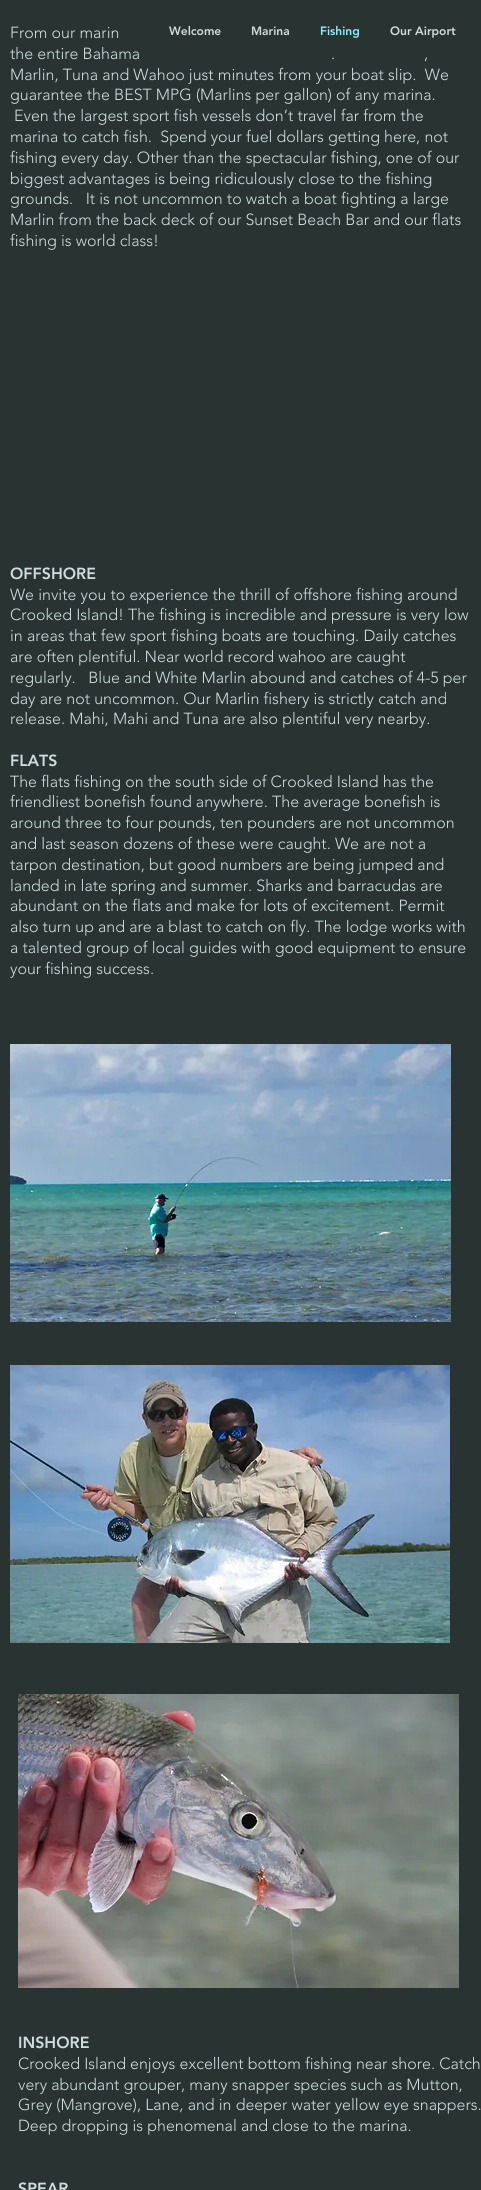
#include <cairo.h>
#include <math.h>
#include <stddef.h>

typedef struct { double x, y; const char *s; } line_t;

static void ink(cairo_t *ctx, unsigned color) {
    cairo_set_source_rgb(ctx, (color >> 16) / 255.0, (color >> 8 & 255) / 255.0, (color & 255) / 255.0);
}

static void paste(cairo_t *ctx, const char *path, double x, double y, double w, double h) {
    cairo_surface_t *image = cairo_image_surface_create_from_png(path);
    cairo_save(ctx);
    cairo_set_source_surface(ctx, image, x, y);
    cairo_rectangle(ctx, x, y, w, h);
    cairo_fill(ctx);
    cairo_restore(ctx);
    cairo_surface_destroy(image);
}

int main(void) {
    cairo_surface_t *surface = cairo_image_surface_create(CAIRO_FORMAT_RGB24, 481, 2190);
    cairo_t *ctx = cairo_create(surface);
    cairo_font_options_t *options = cairo_font_options_create();
    cairo_font_options_set_hint_metrics(options, CAIRO_HINT_METRICS_OFF);
    cairo_font_options_set_hint_style(options, CAIRO_HINT_STYLE_NONE);
    cairo_set_font_options(ctx, options);
    cairo_set_miter_limit(ctx, 4);
    ink(ctx, 0x293332);
    cairo_paint(ctx);
    cairo_select_font_face(ctx, "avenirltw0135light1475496 Light", CAIRO_FONT_SLANT_NORMAL, CAIRO_FONT_WEIGHT_NORMAL);
    cairo_set_font_size(ctx, 16);
    ink(ctx, 0xCEDDDC);
    cairo_move_to(ctx, 10, 59);
    cairo_show_text(ctx, "the entire Bahama");
    ink(ctx, 0x293332);
    cairo_new_path(ctx);
    cairo_move_to(ctx, 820, 54);
    cairo_line_to(ctx, 183, 54);
    cairo_curve_to(ctx, 148, 54, 119, 50, 119, 44);
    cairo_line_to(ctx, 119, 19);
    cairo_curve_to(ctx, 119, 13, 148, 9, 183, 9);
    cairo_line_to(ctx, 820, 9);
    cairo_curve_to(ctx, 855, 9, 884, 13, 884, 19);
    cairo_line_to(ctx, 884, 44);
    cairo_curve_to(ctx, 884, 50, 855, 54, 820, 54);
    cairo_close_path(ctx);
    cairo_fill(ctx);
    cairo_select_font_face(ctx, "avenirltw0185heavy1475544 Black", CAIRO_FONT_SLANT_NORMAL, CAIRO_FONT_WEIGHT_NORMAL);
    cairo_set_font_size(ctx, 12);
    ink(ctx, 0xCEDDDC);
    cairo_move_to(ctx, 169, 35);
    cairo_show_text(ctx, "Welcome");
    cairo_move_to(ctx, 251, 35);
    cairo_show_text(ctx, "Marina");
    ink(ctx, 0x89EFFC);
    cairo_move_to(ctx, 320, 35);
    cairo_show_text(ctx, "Fishing");
    ink(ctx, 0xCEDDDC);
    cairo_move_to(ctx, 390, 35);
    cairo_show_text(ctx, "Our Airport");
    cairo_select_font_face(ctx, "avenirltw0135light1475496 Light", CAIRO_FONT_SLANT_NORMAL, CAIRO_FONT_WEIGHT_NORMAL);
    cairo_set_font_size(ctx, 16);
    {
        static const line_t items[] = {
            {10, 38, "From our marin"},
            {331, 59, "."},
            {424, 59, ","},
            {10, 80, "Marlin, Tuna and Wahoo just minutes from your boat slip.  We"},
            {10, 100, "guarantee the BEST MPG (Marlins per gallon) of any marina."},
            {14, 121, "Even the largest sport fish vessels don’t travel far from the"},
            {10, 142, "marina to catch fish.  Spend your fuel dollars getting here, not"},
            {10, 163, "fishing every day. Other than the spectacular fishing, one of our"},
            {10, 184, "biggest advantages is being ridiculously close to the fishing"},
            {10, 204, "grounds.   It is not uncommon to watch a boat fighting a large"},
            {10, 225, "Marlin from the back deck of our Sunset Beach Bar and our flats"},
            {10, 246, "fishing is world class!"},
        };
        for (size_t i = 0; i < sizeof items / sizeof *items; i++) {
            cairo_move_to(ctx, items[i].x, items[i].y);
            cairo_show_text(ctx, items[i].s);
        }
    }
    cairo_select_font_face(ctx, "avenirltw0185heavy1475544 Black", CAIRO_FONT_SLANT_NORMAL, CAIRO_FONT_WEIGHT_NORMAL);
    cairo_move_to(ctx, 10, 579);
    cairo_show_text(ctx, "OFFSHORE");
    cairo_select_font_face(ctx, "avenirltw0135light1475496 Light", CAIRO_FONT_SLANT_NORMAL, CAIRO_FONT_WEIGHT_NORMAL);
    {
        static const line_t items[] = {
            {10, 600, "We invite you to experience the thrill of offshore fishing around"},
            {10, 620, "Crooked Island! The fishing is incredible and pressure is very low"},
            {10, 641, "in areas that few sport fishing boats are touching. Daily catches"},
            {10, 662, "are often plentiful. Near world record wahoo are caught"},
            {10, 683, "regularly.   Blue and White Marlin abound and catches of 4-5 per"},
            {10, 704, "day are not uncommon. Our Marlin fishery is strictly catch and"},
            {10, 724, "release. Mahi, Mahi and Tuna are also plentiful very nearby."},
        };
        for (size_t i = 0; i < sizeof items / sizeof *items; i++) {
            cairo_move_to(ctx, items[i].x, items[i].y);
            cairo_show_text(ctx, items[i].s);
        }
    }
    cairo_select_font_face(ctx, "avenirltw0185heavy1475544 Black", CAIRO_FONT_SLANT_NORMAL, CAIRO_FONT_WEIGHT_NORMAL);
    cairo_move_to(ctx, 10, 766);
    cairo_show_text(ctx, "FLATS");
    cairo_select_font_face(ctx, "avenirltw0135light1475496 Light", CAIRO_FONT_SLANT_NORMAL, CAIRO_FONT_WEIGHT_NORMAL);
    {
        static const line_t items[] = {
            {10, 787, "The flats fishing on the south side of Crooked Island has the"},
            {10, 807, "friendliest bonefish found anywhere. The average bonefish is"},
            {10, 828, "around three to four pounds, ten pounders are not uncommon"},
            {10, 849, "and last season dozens of these were caught. We are not a"},
            {10, 870, "tarpon destination, but good numbers are being jumped and"},
            {10, 891, "landed in late spring and summer. Sharks and barracudas are"},
            {10, 911, "abundant on the flats and make for lots of excitement. Permit"},
            {10, 932, "also turn up and are a blast to catch on fly. The lodge works with"},
            {10, 953, "a talented group of local guides with good equipment to ensure"},
            {10, 974, "your fishing success."},
        };
        for (size_t i = 0; i < sizeof items / sizeof *items; i++) {
            cairo_move_to(ctx, items[i].x, items[i].y);
            cairo_show_text(ctx, items[i].s);
        }
    }
    paste(ctx, "media/1.png", 10, 1044, 441, 278);
    paste(ctx, "media/2.png", 10, 1365, 440, 278);
    paste(ctx, "media/3.png", 18, 1694, 441, 294);
    cairo_select_font_face(ctx, "avenirltw0185heavy1475544 Black", CAIRO_FONT_SLANT_NORMAL, CAIRO_FONT_WEIGHT_NORMAL);
    cairo_move_to(ctx, 18, 2048);
    cairo_show_text(ctx, "INSHORE");
    cairo_select_font_face(ctx, "avenirltw0135light1475496 Light", CAIRO_FONT_SLANT_NORMAL, CAIRO_FONT_WEIGHT_NORMAL);
    {
        static const line_t items[] = {
            {18, 2069, "Crooked Island enjoys excellent bottom fishing near shore. Catch"},
            {18, 2090, "very abundant grouper, many snapper species such as Mutton,"},
            {18, 2110, "Grey (Mangrove), Lane, and in deeper water yellow eye snappers."},
            {18, 2131, "Deep dropping is phenomenal and close to the marina."},
        };
        for (size_t i = 0; i < sizeof items / sizeof *items; i++) {
            cairo_move_to(ctx, items[i].x, items[i].y);
            cairo_show_text(ctx, items[i].s);
        }
    }
    cairo_select_font_face(ctx, "avenirltw0185heavy1475544 Black", CAIRO_FONT_SLANT_NORMAL, CAIRO_FONT_WEIGHT_NORMAL);
    cairo_move_to(ctx, 18, 2194);
    cairo_show_text(ctx, "SPEAR");
    cairo_surface_write_to_png(surface, "image.png");
    cairo_font_options_destroy(options);
    cairo_destroy(ctx);
    cairo_surface_destroy(surface);
    return 0;
}
